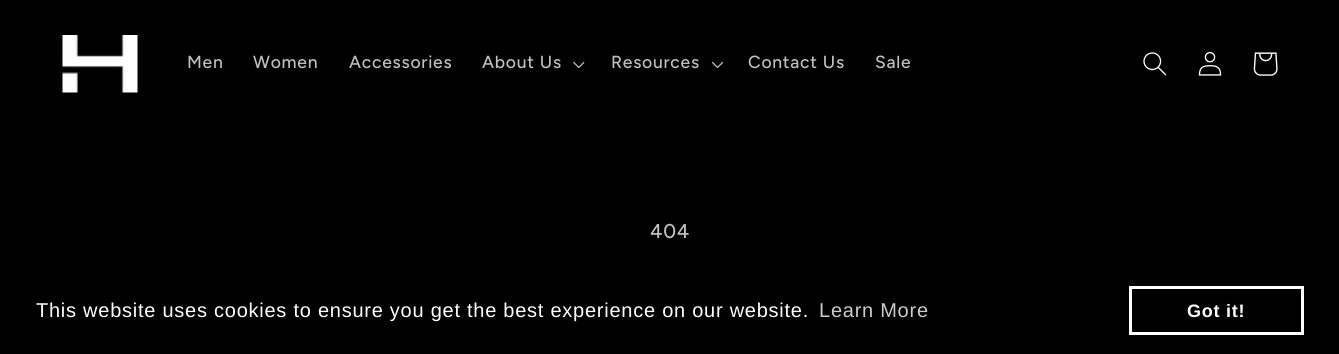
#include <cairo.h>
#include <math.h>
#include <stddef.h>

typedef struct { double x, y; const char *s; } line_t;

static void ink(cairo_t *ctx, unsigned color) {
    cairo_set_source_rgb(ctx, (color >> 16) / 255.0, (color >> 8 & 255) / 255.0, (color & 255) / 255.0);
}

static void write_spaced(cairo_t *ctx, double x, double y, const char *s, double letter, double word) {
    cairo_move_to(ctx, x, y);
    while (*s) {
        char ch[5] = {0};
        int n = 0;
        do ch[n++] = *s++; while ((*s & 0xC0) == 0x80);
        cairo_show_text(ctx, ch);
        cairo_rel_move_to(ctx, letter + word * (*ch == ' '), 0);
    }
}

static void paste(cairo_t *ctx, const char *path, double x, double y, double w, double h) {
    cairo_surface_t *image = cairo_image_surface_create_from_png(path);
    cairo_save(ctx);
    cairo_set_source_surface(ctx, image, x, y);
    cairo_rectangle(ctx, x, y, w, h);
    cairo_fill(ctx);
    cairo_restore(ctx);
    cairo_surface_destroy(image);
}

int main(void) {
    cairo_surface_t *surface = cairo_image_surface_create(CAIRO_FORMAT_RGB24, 1339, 354);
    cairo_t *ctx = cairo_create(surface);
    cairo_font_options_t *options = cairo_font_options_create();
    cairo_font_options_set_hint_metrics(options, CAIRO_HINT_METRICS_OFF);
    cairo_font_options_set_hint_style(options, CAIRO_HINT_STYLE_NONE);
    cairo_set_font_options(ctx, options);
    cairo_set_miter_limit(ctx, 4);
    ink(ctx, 0x000000);
    cairo_paint(ctx);
    paste(ctx, "media/1.png", 62, 35, 76, 58);
    cairo_select_font_face(ctx, "Figtree Medium", CAIRO_FONT_SLANT_NORMAL, CAIRO_FONT_WEIGHT_NORMAL);
    cairo_set_font_size(ctx, 17.5);
    ink(ctx, 0xBFBFBF);
    {
        static const line_t items[] = {
            {187, 68, "Men"},
            {253, 68, "Women"},
            {349, 68, "Accessories"},
            {482, 68, "About Us"},
        };
        for (size_t i = 0; i < sizeof items / sizeof *items; i++) {
            write_spaced(ctx, items[i].x, items[i].y, items[i].s, 0.75, 0);
        }
    }
    paste(ctx, "media/2.png", 573, 61, 12, 8);
    write_spaced(ctx, 611, 68, "Resources", 0.75, 0);
    paste(ctx, "media/3.png", 711, 61, 13, 8);
    write_spaced(ctx, 748, 68, "Contact Us", 0.75, 0);
    write_spaced(ctx, 875, 68, "Sale", 0.75, 0);
    paste(ctx, "media/4.png", 1143, 52, 24, 24);
    paste(ctx, "media/5.png", 1198, 51, 24, 25);
    paste(ctx, "media/6.png", 1253, 52, 25, 24);
    cairo_set_font_size(ctx, 20);
    write_spaced(ctx, 650, 238, "404", 0.75, 0);
    cairo_select_font_face(ctx, "Liberation Sans", CAIRO_FONT_SLANT_NORMAL, CAIRO_FONT_WEIGHT_NORMAL);
    ink(ctx, 0xFFFFFF);
    write_spaced(ctx, 36, 317, "This website uses cookies to ensure you get the best experience on our website.", 0.75, 0);
    ink(ctx, 0xCCCCCC);
    write_spaced(ctx, 819, 317, "Learn More", 0.75, 0);
    cairo_rectangle(ctx, 1130.5, 287.5, 172, 46);
    ink(ctx, 0xFFFFFF);
    cairo_set_line_width(ctx, 3);
    cairo_stroke(ctx);
    cairo_select_font_face(ctx, "Liberation Sans", CAIRO_FONT_SLANT_NORMAL, CAIRO_FONT_WEIGHT_BOLD);
    cairo_set_font_size(ctx, 18);
    write_spaced(ctx, 1187, 317, "Got it!", 0.75, 0);
    cairo_surface_write_to_png(surface, "image.png");
    cairo_font_options_destroy(options);
    cairo_destroy(ctx);
    cairo_surface_destroy(surface);
    return 0;
}
